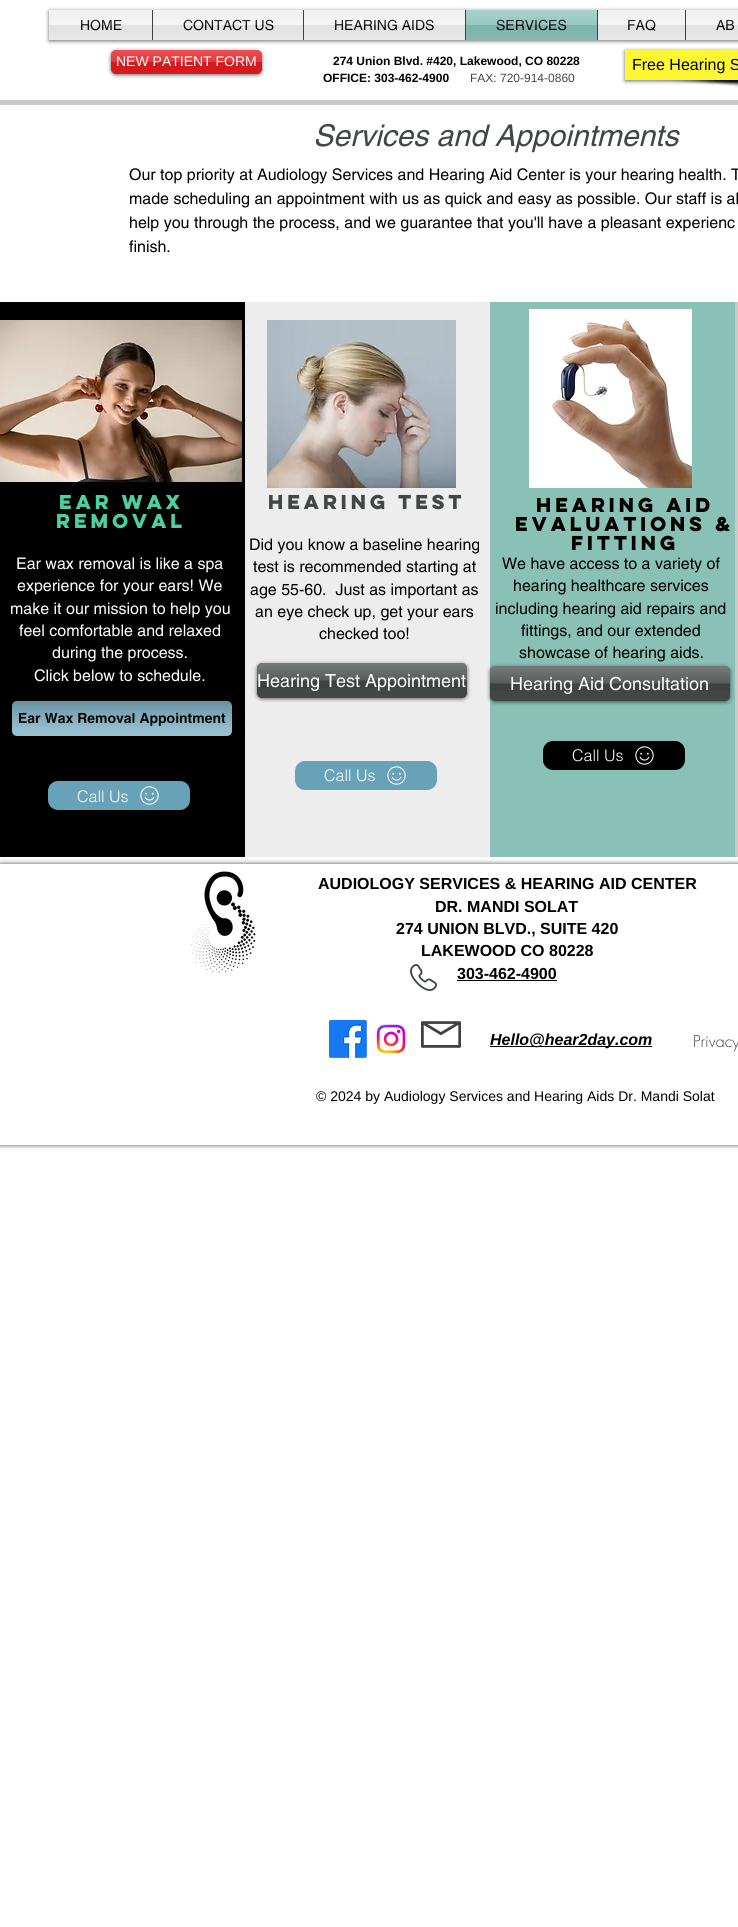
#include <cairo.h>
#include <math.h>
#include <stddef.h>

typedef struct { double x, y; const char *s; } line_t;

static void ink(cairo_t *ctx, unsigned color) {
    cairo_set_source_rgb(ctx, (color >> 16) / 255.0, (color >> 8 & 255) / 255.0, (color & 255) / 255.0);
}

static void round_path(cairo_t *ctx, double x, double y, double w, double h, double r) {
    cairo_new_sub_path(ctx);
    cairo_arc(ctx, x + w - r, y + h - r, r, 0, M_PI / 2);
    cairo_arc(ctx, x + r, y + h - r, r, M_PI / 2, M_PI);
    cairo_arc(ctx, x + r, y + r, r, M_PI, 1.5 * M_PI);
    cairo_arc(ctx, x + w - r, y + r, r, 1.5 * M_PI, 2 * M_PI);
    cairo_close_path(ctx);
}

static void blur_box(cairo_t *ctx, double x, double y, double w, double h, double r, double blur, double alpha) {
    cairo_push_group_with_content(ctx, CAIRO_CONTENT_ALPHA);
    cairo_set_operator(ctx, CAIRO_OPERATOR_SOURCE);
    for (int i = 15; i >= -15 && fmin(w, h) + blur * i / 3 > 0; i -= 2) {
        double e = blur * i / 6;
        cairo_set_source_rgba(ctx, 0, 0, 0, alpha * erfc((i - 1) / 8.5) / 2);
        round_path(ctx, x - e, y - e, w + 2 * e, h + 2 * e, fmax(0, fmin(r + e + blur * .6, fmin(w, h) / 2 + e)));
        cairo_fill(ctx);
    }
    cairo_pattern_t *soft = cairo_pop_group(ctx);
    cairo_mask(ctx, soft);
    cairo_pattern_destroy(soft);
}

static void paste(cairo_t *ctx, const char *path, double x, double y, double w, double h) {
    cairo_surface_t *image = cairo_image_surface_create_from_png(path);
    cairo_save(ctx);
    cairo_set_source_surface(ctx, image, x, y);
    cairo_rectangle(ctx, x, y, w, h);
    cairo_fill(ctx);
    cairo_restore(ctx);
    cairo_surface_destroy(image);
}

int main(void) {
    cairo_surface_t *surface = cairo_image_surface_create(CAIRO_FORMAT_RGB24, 738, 1927);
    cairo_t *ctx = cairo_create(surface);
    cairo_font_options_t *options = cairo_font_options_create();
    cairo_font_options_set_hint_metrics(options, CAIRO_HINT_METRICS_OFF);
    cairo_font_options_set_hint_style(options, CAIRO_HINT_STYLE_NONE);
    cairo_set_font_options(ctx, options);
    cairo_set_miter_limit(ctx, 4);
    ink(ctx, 0xFFFFFF);
    cairo_paint(ctx);
    ink(ctx, 0x000000);
    blur_box(ctx, 49, 11, 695, 30, 0, 2, 0.6);
    ink(ctx, 0xF2F2F2);
    cairo_rectangle(ctx, 49, 10, 103, 30);
    cairo_fill(ctx);
    cairo_select_font_face(ctx, "helvetica", CAIRO_FONT_SLANT_NORMAL, CAIRO_FONT_WEIGHT_NORMAL);
    cairo_set_font_size(ctx, 14);
    ink(ctx, 0x000000);
    cairo_move_to(ctx, 80, 30);
    cairo_show_text(ctx, "HOME");
    paste(ctx, "media/1.png", 49, 19, 103, 21);
    ink(ctx, 0xF2F2F2);
    cairo_rectangle(ctx, 153, 10, 150, 30);
    cairo_fill(ctx);
    ink(ctx, 0x414141);
    cairo_rectangle(ctx, 152, 10, 1, 30);
    cairo_fill(ctx);
    ink(ctx, 0x000000);
    cairo_move_to(ctx, 183, 30);
    cairo_show_text(ctx, "CONTACT US");
    paste(ctx, "media/2.png", 153, 19, 150, 21);
    ink(ctx, 0xF2F2F2);
    cairo_rectangle(ctx, 304, 10, 161, 30);
    cairo_fill(ctx);
    ink(ctx, 0x414141);
    cairo_rectangle(ctx, 303, 10, 1, 30);
    cairo_fill(ctx);
    ink(ctx, 0x000000);
    cairo_move_to(ctx, 334, 30);
    cairo_show_text(ctx, "HEARING AIDS");
    paste(ctx, "media/3.png", 304, 19, 161, 21);
    ink(ctx, 0x89C1B6);
    cairo_rectangle(ctx, 466, 10, 131, 30);
    cairo_fill(ctx);
    ink(ctx, 0x414141);
    cairo_rectangle(ctx, 465, 10, 1, 30);
    cairo_fill(ctx);
    ink(ctx, 0x000000);
    cairo_move_to(ctx, 496, 30);
    cairo_show_text(ctx, "SERVICES");
    paste(ctx, "media/4.png", 466, 10, 131, 30);
    ink(ctx, 0xF2F2F2);
    cairo_rectangle(ctx, 598, 10, 87, 30);
    cairo_fill(ctx);
    ink(ctx, 0x414141);
    cairo_rectangle(ctx, 597, 10, 1, 30);
    cairo_fill(ctx);
    ink(ctx, 0x000000);
    cairo_move_to(ctx, 627, 30);
    cairo_show_text(ctx, "FAQ");
    paste(ctx, "media/5.png", 598, 19, 87, 21);
    ink(ctx, 0xF2F2F2);
    cairo_rectangle(ctx, 686, 10, 52, 30);
    cairo_fill(ctx);
    ink(ctx, 0x414141);
    cairo_rectangle(ctx, 685, 10, 1, 30);
    cairo_fill(ctx);
    ink(ctx, 0x000000);
    cairo_move_to(ctx, 716, 30);
    cairo_show_text(ctx, "AB");
    paste(ctx, "media/6.png", 686, 19, 52, 21);
    ink(ctx, 0x000000);
    blur_box(ctx, 111, 51, 151, 24, 5, 2, 0.6);
    ink(ctx, 0xE21C21);
    round_path(ctx, 111, 50, 151, 24, 5);
    cairo_fill(ctx);
    paste(ctx, "media/7.png", 111, 50, 151, 24);
    cairo_select_font_face(ctx, "Liberation Sans", CAIRO_FONT_SLANT_NORMAL, CAIRO_FONT_WEIGHT_NORMAL);
    ink(ctx, 0xFFFFFF);
    cairo_move_to(ctx, 116, 66);
    cairo_show_text(ctx, "NEW PATIENT FORM");
    cairo_select_font_face(ctx, "Liberation Sans", CAIRO_FONT_SLANT_NORMAL, CAIRO_FONT_WEIGHT_BOLD);
    cairo_set_font_size(ctx, 12);
    ink(ctx, 0x000000);
    cairo_move_to(ctx, 333, 65);
    cairo_show_text(ctx, "274 Union Blvd. #420, Lakewood, CO 80228");
    paste(ctx, "media/8.png", 657, 80, 81, 8);
    ink(ctx, 0x000000);
    blur_box(ctx, 625, 51, 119, 30, 0, 2, 0.6);
    ink(ctx, 0xFDF733);
    cairo_rectangle(ctx, 625, 50, 113, 30);
    cairo_fill(ctx);
    cairo_select_font_face(ctx, "Liberation Sans", CAIRO_FONT_SLANT_NORMAL, CAIRO_FONT_WEIGHT_NORMAL);
    cairo_set_font_size(ctx, 16);
    ink(ctx, 0x000000);
    cairo_move_to(ctx, 632, 70);
    cairo_show_text(ctx, "Free Hearing S");
    cairo_select_font_face(ctx, "Liberation Sans", CAIRO_FONT_SLANT_NORMAL, CAIRO_FONT_WEIGHT_BOLD);
    cairo_set_font_size(ctx, 12);
    cairo_move_to(ctx, 323, 82);
    cairo_show_text(ctx, "OFFICE: 303-462-4900");
    cairo_select_font_face(ctx, "Liberation Sans", CAIRO_FONT_SLANT_NORMAL, CAIRO_FONT_WEIGHT_NORMAL);
    ink(ctx, 0x424746);
    cairo_move_to(ctx, 470, 82);
    cairo_show_text(ctx, "FAX: 720-914-0860");
    ink(ctx, 0xC9C9C9);
    cairo_rectangle(ctx, 0, 100, 738, 5);
    cairo_fill(ctx);
    cairo_select_font_face(ctx, "helvetica", CAIRO_FONT_SLANT_ITALIC, CAIRO_FONT_WEIGHT_NORMAL);
    cairo_set_font_size(ctx, 30);
    ink(ctx, 0x424746);
    cairo_move_to(ctx, 313, 146);
    cairo_show_text(ctx, "Services and Appointments");
    cairo_select_font_face(ctx, "helvetica", CAIRO_FONT_SLANT_NORMAL, CAIRO_FONT_WEIGHT_NORMAL);
    cairo_set_font_size(ctx, 16);
    ink(ctx, 0x000000);
    {
        static const line_t items[] = {
            {129, 180, "Our top priority at Audiology Services and Hearing Aid Center is your hearing health. T"},
            {129, 204, "made scheduling an appointment with us as quick and easy as possible. Our staff is al"},
            {129, 228, "help you through the process, and we guarantee that you'll have a pleasant experienc"},
            {129, 252, "finish."},
        };
        for (size_t i = 0; i < sizeof items / sizeof *items; i++) {
            cairo_move_to(ctx, items[i].x, items[i].y);
            cairo_show_text(ctx, items[i].s);
        }
    }
    cairo_rectangle(ctx, 0, 302, 245, 555);
    cairo_fill(ctx);
    paste(ctx, "media/9.png", 0, 320, 242, 162);
    cairo_select_font_face(ctx, "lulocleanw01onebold", CAIRO_FONT_SLANT_NORMAL, CAIRO_FONT_WEIGHT_BOLD);
    cairo_set_font_size(ctx, 18);
    ink(ctx, 0x4BD1A0);
    cairo_move_to(ctx, 59, 509);
    cairo_show_text(ctx, "ear wax");
    cairo_move_to(ctx, 56, 528);
    cairo_show_text(ctx, "removal");
    cairo_select_font_face(ctx, "helvetica", CAIRO_FONT_SLANT_NORMAL, CAIRO_FONT_WEIGHT_NORMAL);
    cairo_set_font_size(ctx, 16);
    ink(ctx, 0xFFFFFF);
    {
        static const line_t items[] = {
            {16, 569, "Ear wax removal is like a spa"},
            {17, 591, "experience for your ears! We"},
            {10, 614, "make it our mission to help you"},
            {19, 636, "feel comfortable and relaxed"},
            {52, 658, "during the process."},
            {34, 681, "Click below to schedule."},
        };
        for (size_t i = 0; i < sizeof items / sizeof *items; i++) {
            cairo_move_to(ctx, items[i].x, items[i].y);
            cairo_show_text(ctx, items[i].s);
        }
    }
    ink(ctx, 0x7EB0C4);
    round_path(ctx, 12, 701, 220, 35, 5);
    cairo_fill(ctx);
    paste(ctx, "media/10.png", 12, 701, 220, 26);
    paste(ctx, "media/11.png", 12, 704, 220, 32);
    cairo_select_font_face(ctx, "helvetica", CAIRO_FONT_SLANT_NORMAL, CAIRO_FONT_WEIGHT_BOLD);
    cairo_set_font_size(ctx, 14);
    ink(ctx, 0x080808);
    cairo_move_to(ctx, 18, 723);
    cairo_show_text(ctx, "Ear Wax Removal Appointment");
    ink(ctx, 0x68A2B9);
    round_path(ctx, 48, 781, 142, 29, 10);
    cairo_fill(ctx);
    cairo_select_font_face(ctx, "helvetica Light", CAIRO_FONT_SLANT_NORMAL, CAIRO_FONT_WEIGHT_NORMAL);
    cairo_set_font_size(ctx, 16);
    ink(ctx, 0xFFFFFF);
    cairo_move_to(ctx, 77, 802);
    cairo_show_text(ctx, "Call Us");
    paste(ctx, "media/12.png", 140, 786, 19, 19);
    ink(ctx, 0xEDEDED);
    cairo_rectangle(ctx, 245, 302, 245, 555);
    cairo_fill(ctx);
    paste(ctx, "media/13.png", 267, 320, 189, 168);
    cairo_select_font_face(ctx, "lulocleanw01onebold", CAIRO_FONT_SLANT_NORMAL, CAIRO_FONT_WEIGHT_BOLD);
    cairo_set_font_size(ctx, 18);
    ink(ctx, 0x424746);
    cairo_move_to(ctx, 268, 509);
    cairo_show_text(ctx, "HEARING TEST");
    cairo_select_font_face(ctx, "helvetica", CAIRO_FONT_SLANT_NORMAL, CAIRO_FONT_WEIGHT_NORMAL);
    cairo_set_font_size(ctx, 16);
    ink(ctx, 0x000000);
    {
        static const line_t items[] = {
            {249, 550, "Did you know a baseline hearing"},
            {253, 572, "test is recommended starting at"},
            {250, 595, "age 55-60.  Just as important as"},
            {255, 617, "an eye check up, get your ears"},
            {319, 639, "checked too!"},
        };
        for (size_t i = 0; i < sizeof items / sizeof *items; i++) {
            cairo_move_to(ctx, items[i].x, items[i].y);
            cairo_show_text(ctx, items[i].s);
        }
    }
    ink(ctx, 0x000000);
    blur_box(ctx, 257, 664, 210, 35, 5, 2, 0.6);
    ink(ctx, 0x424746);
    round_path(ctx, 257, 663, 210, 35, 5);
    cairo_fill(ctx);
    paste(ctx, "media/14.png", 257, 663, 210, 25);
    cairo_set_font_size(ctx, 18);
    ink(ctx, 0xFFFFFF);
    cairo_move_to(ctx, 257, 687);
    cairo_show_text(ctx, "Hearing Test Appointment");
    ink(ctx, 0x68A2B9);
    round_path(ctx, 295, 761, 142, 29, 10);
    cairo_fill(ctx);
    cairo_select_font_face(ctx, "helvetica Light", CAIRO_FONT_SLANT_NORMAL, CAIRO_FONT_WEIGHT_NORMAL);
    cairo_set_font_size(ctx, 16);
    ink(ctx, 0xFFFFFF);
    cairo_move_to(ctx, 324, 781);
    cairo_show_text(ctx, "Call Us");
    paste(ctx, "media/12.png", 387, 766, 19, 19);
    ink(ctx, 0x89C1B6);
    cairo_rectangle(ctx, 490, 302, 245, 555);
    cairo_fill(ctx);
    paste(ctx, "media/15.png", 529, 309, 163, 179);
    cairo_select_font_face(ctx, "lulocleanw01onebold", CAIRO_FONT_SLANT_NORMAL, CAIRO_FONT_WEIGHT_BOLD);
    cairo_set_font_size(ctx, 18);
    ink(ctx, 0x000000);
    {
        static const line_t items[] = {
            {536, 512, "Hearing Aid"},
            {515, 531, "evaluations &"},
            {571, 550, "Fitting"},
        };
        for (size_t i = 0; i < sizeof items / sizeof *items; i++) {
            cairo_move_to(ctx, items[i].x, items[i].y);
            cairo_show_text(ctx, items[i].s);
        }
    }
    cairo_select_font_face(ctx, "helvetica", CAIRO_FONT_SLANT_NORMAL, CAIRO_FONT_WEIGHT_NORMAL);
    cairo_set_font_size(ctx, 16);
    {
        static const line_t items[] = {
            {502, 569, "We have access to a variety of"},
            {513, 591, "hearing healthcare services"},
            {495, 614, "including hearing aid repairs and"},
            {521, 636, "fittings, and our extended"},
            {519, 658, "showcase of hearing aids."},
        };
        for (size_t i = 0; i < sizeof items / sizeof *items; i++) {
            cairo_move_to(ctx, items[i].x, items[i].y);
            cairo_show_text(ctx, items[i].s);
        }
    }
    ink(ctx, 0x000000);
    blur_box(ctx, 490, 667, 240, 35, 5, 2, 0.6);
    ink(ctx, 0x424746);
    round_path(ctx, 490, 666, 240, 35, 5);
    cairo_fill(ctx);
    paste(ctx, "media/16.png", 490, 666, 240, 25);
    cairo_set_font_size(ctx, 18);
    ink(ctx, 0xFFFFFF);
    cairo_move_to(ctx, 510, 690);
    cairo_show_text(ctx, "Hearing Aid Consultation");
    ink(ctx, 0x000000);
    round_path(ctx, 543, 741, 142, 29, 10);
    cairo_fill(ctx);
    cairo_select_font_face(ctx, "helvetica Light", CAIRO_FONT_SLANT_NORMAL, CAIRO_FONT_WEIGHT_NORMAL);
    cairo_set_font_size(ctx, 16);
    ink(ctx, 0xFFFFFF);
    cairo_move_to(ctx, 572, 761);
    cairo_show_text(ctx, "Call Us");
    paste(ctx, "media/17.png", 635, 746, 19, 19);
    ink(ctx, 0xC9C9C9);
    cairo_rectangle(ctx, 735, 302, 3, 555);
    cairo_fill(ctx);
    cairo_save(ctx);
    cairo_set_fill_rule(ctx, CAIRO_FILL_RULE_EVEN_ODD);
    cairo_new_path(ctx);
    cairo_move_to(ctx, 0, 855);
    cairo_line_to(ctx, 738, 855);
    cairo_line_to(ctx, 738, 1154);
    cairo_line_to(ctx, 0, 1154);
    cairo_close_path(ctx);
    cairo_move_to(ctx, 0, 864);
    cairo_line_to(ctx, 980, 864);
    cairo_line_to(ctx, 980, 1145);
    cairo_line_to(ctx, 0, 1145);
    cairo_close_path(ctx);
    cairo_clip(ctx);
    ink(ctx, 0x000000);
    blur_box(ctx, 0, 864, 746, 281, 0, 2.5, 0.7);
    cairo_restore(ctx);
    paste(ctx, "media/18.png", 191, 871, 65, 102);
    cairo_select_font_face(ctx, "Liberation Sans", CAIRO_FONT_SLANT_NORMAL, CAIRO_FONT_WEIGHT_BOLD);
    ink(ctx, 0x000000);
    {
        static const line_t items[] = {
            {318, 889, "AUDIOLOGY SERVICES & HEARING AID CENTER"},
            {435, 912, "DR. MANDI SOLAT"},
            {396, 934, "274 UNION BLVD., SUITE 420"},
            {421, 956, "LAKEWOOD CO 80228"},
            {457, 979, "303-462-4900"},
        };
        for (size_t i = 0; i < sizeof items / sizeof *items; i++) {
            cairo_move_to(ctx, items[i].x, items[i].y);
            cairo_show_text(ctx, items[i].s);
        }
    }
    cairo_rectangle(ctx, 457, 980, 100, 1);
    cairo_fill(ctx);
    paste(ctx, "media/19.png", 410, 964, 27, 27);
    paste(ctx, "media/20.png", 329, 1020, 38, 38);
    paste(ctx, "media/21.png", 376, 1024, 30, 30);
    paste(ctx, "media/22.png", 421, 1021, 40, 27);
    cairo_rectangle(ctx, 490, 1046, 162, 1);
    cairo_fill(ctx);
    cairo_select_font_face(ctx, "Liberation Sans", CAIRO_FONT_SLANT_ITALIC, CAIRO_FONT_WEIGHT_BOLD);
    cairo_move_to(ctx, 490, 1045);
    cairo_show_text(ctx, "Hello@hear2day.com");
    cairo_select_font_face(ctx, "futura Light", CAIRO_FONT_SLANT_NORMAL, CAIRO_FONT_WEIGHT_NORMAL);
    ink(ctx, 0x414141);
    cairo_move_to(ctx, 693, 1047);
    cairo_show_text(ctx, "Privacy");
    cairo_select_font_face(ctx, "Liberation Sans", CAIRO_FONT_SLANT_NORMAL, CAIRO_FONT_WEIGHT_NORMAL);
    cairo_set_font_size(ctx, 14);
    ink(ctx, 0x000000);
    cairo_move_to(ctx, 316, 1101);
    cairo_show_text(ctx, "© 2024 by Audiology Services and Hearing Aids Dr. Mandi Solat");
    cairo_surface_write_to_png(surface, "image.png");
    cairo_font_options_destroy(options);
    cairo_destroy(ctx);
    cairo_surface_destroy(surface);
    return 0;
}
